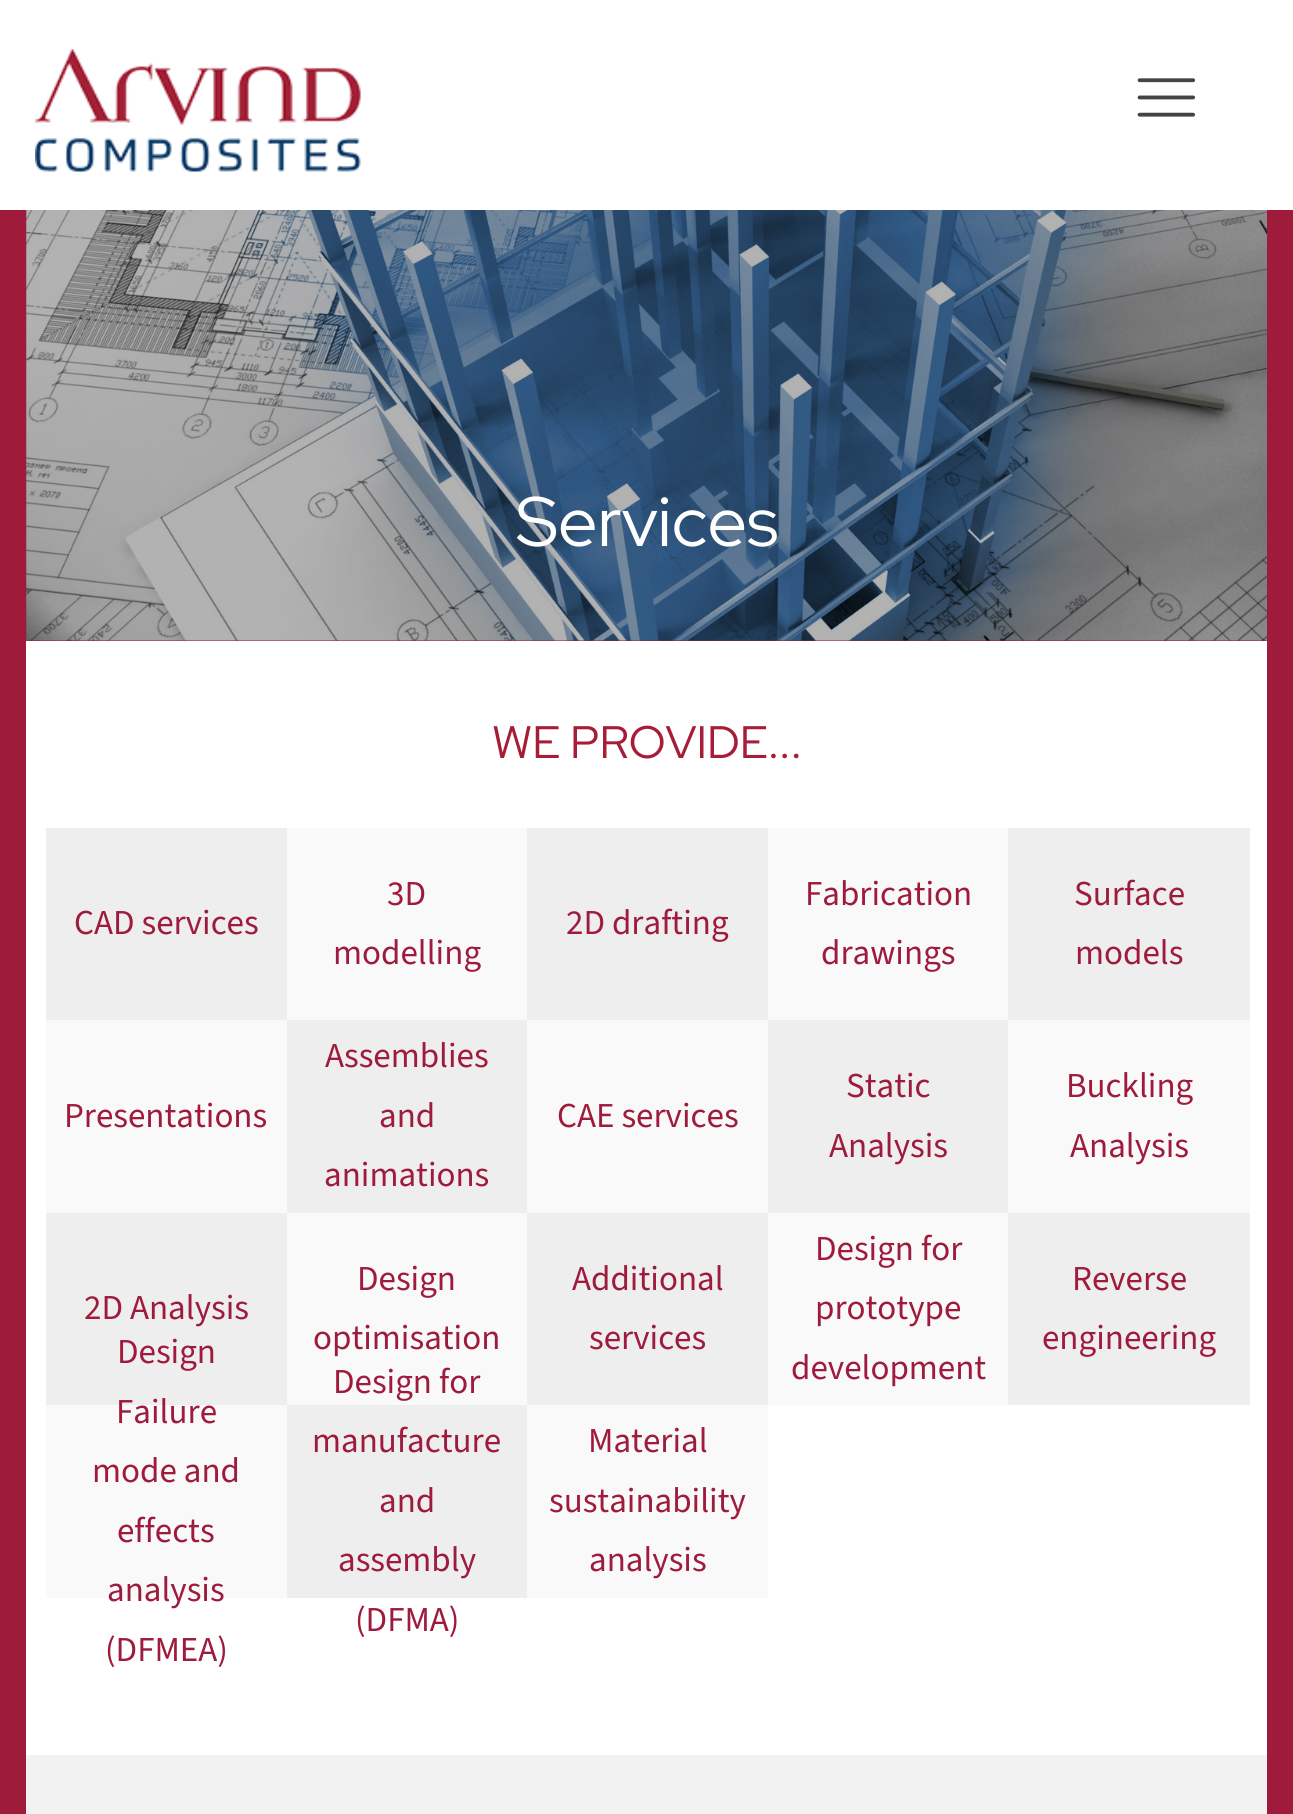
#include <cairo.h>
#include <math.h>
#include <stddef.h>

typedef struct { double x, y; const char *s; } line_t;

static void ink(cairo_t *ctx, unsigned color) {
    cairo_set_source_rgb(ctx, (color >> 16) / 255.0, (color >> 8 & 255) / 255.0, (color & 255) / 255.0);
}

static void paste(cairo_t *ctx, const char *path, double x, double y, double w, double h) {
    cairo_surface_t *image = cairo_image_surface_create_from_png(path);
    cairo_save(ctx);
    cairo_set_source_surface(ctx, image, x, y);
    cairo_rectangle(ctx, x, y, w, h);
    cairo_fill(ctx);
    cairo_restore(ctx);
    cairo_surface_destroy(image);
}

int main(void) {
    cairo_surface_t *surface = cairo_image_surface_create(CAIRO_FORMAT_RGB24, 1293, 1814);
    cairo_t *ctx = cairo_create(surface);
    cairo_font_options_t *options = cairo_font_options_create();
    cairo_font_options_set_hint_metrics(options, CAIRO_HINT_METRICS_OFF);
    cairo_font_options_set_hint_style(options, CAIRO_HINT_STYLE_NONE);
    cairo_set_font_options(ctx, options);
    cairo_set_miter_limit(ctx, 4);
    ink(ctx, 0x9F1B3C);
    cairo_paint(ctx);
    ink(ctx, 0xFFFFFF);
    cairo_rectangle(ctx, 0, 0, 1293, 210);
    cairo_fill(ctx);
    paste(ctx, "media/1.png", 35, 49, 326, 123);
    paste(ctx, "media/2.png", 1137, 78, 59, 39);
    paste(ctx, "media/3.png", 26, 210, 1241, 431);
    cairo_select_font_face(ctx, "Red Hat Display", CAIRO_FONT_SLANT_NORMAL, CAIRO_FONT_WEIGHT_NORMAL);
    cairo_set_font_size(ctx, 70);
    cairo_move_to(ctx, 516, 546);
    cairo_show_text(ctx, "Services");
    cairo_rectangle(ctx, 26, 641, 1241, 1114);
    cairo_fill(ctx);
    cairo_set_font_size(ctx, 45.5);
    ink(ctx, 0xA71D37);
    cairo_move_to(ctx, 492, 758);
    cairo_show_text(ctx, "WE PROVIDE...");
    ink(ctx, 0xEEEEEE);
    cairo_rectangle(ctx, 46, 828, 241, 192);
    cairo_fill(ctx);
    cairo_select_font_face(ctx, "Source Sans 3", CAIRO_FONT_SLANT_NORMAL, CAIRO_FONT_WEIGHT_NORMAL);
    cairo_set_font_size(ctx, 35);
    ink(ctx, 0x9F1B3C);
    cairo_move_to(ctx, 74, 934);
    cairo_show_text(ctx, "CAD services");
    ink(ctx, 0xF9F9F9);
    cairo_rectangle(ctx, 287, 828, 240, 192);
    cairo_fill(ctx);
    ink(ctx, 0x9F1B3C);
    cairo_move_to(ctx, 387, 905);
    cairo_show_text(ctx, "3D");
    cairo_move_to(ctx, 333, 964);
    cairo_show_text(ctx, "modelling");
    ink(ctx, 0xEEEEEE);
    cairo_rectangle(ctx, 527, 828, 241, 192);
    cairo_fill(ctx);
    ink(ctx, 0x9F1B3C);
    cairo_move_to(ctx, 566, 934);
    cairo_show_text(ctx, "2D drafting");
    ink(ctx, 0xF9F9F9);
    cairo_rectangle(ctx, 768, 828, 240, 192);
    cairo_fill(ctx);
    ink(ctx, 0x9F1B3C);
    cairo_move_to(ctx, 805, 905);
    cairo_show_text(ctx, "Fabrication");
    cairo_move_to(ctx, 821, 964);
    cairo_show_text(ctx, "drawings");
    ink(ctx, 0xEEEEEE);
    cairo_rectangle(ctx, 1008, 828, 242, 192);
    cairo_fill(ctx);
    ink(ctx, 0x9F1B3C);
    cairo_move_to(ctx, 1074, 905);
    cairo_show_text(ctx, "Surface");
    cairo_move_to(ctx, 1075, 964);
    cairo_show_text(ctx, "models");
    ink(ctx, 0xF9F9F9);
    cairo_rectangle(ctx, 46, 1020, 241, 193);
    cairo_fill(ctx);
    ink(ctx, 0x9F1B3C);
    cairo_move_to(ctx, 64, 1127);
    cairo_show_text(ctx, "Presentations");
    ink(ctx, 0xEEEEEE);
    cairo_rectangle(ctx, 287, 1020, 240, 193);
    cairo_fill(ctx);
    ink(ctx, 0x9F1B3C);
    {
        static const line_t items[] = {
            {325, 1067, "Assemblies"},
            {379, 1127, "and"},
            {324, 1186, "animations"},
        };
        for (size_t i = 0; i < sizeof items / sizeof *items; i++) {
            cairo_move_to(ctx, items[i].x, items[i].y);
            cairo_show_text(ctx, items[i].s);
        }
    }
    ink(ctx, 0xF9F9F9);
    cairo_rectangle(ctx, 527, 1020, 241, 193);
    cairo_fill(ctx);
    ink(ctx, 0x9F1B3C);
    cairo_move_to(ctx, 557, 1127);
    cairo_show_text(ctx, "CAE services");
    ink(ctx, 0xEEEEEE);
    cairo_rectangle(ctx, 768, 1020, 240, 193);
    cairo_fill(ctx);
    ink(ctx, 0x9F1B3C);
    cairo_move_to(ctx, 846, 1097);
    cairo_show_text(ctx, "Static");
    cairo_move_to(ctx, 829, 1157);
    cairo_show_text(ctx, "Analysis");
    ink(ctx, 0xF9F9F9);
    cairo_rectangle(ctx, 1008, 1020, 242, 193);
    cairo_fill(ctx);
    ink(ctx, 0x9F1B3C);
    cairo_move_to(ctx, 1066, 1097);
    cairo_show_text(ctx, "Buckling");
    cairo_move_to(ctx, 1070, 1157);
    cairo_show_text(ctx, "Analysis");
    ink(ctx, 0xEEEEEE);
    cairo_rectangle(ctx, 46, 1213, 241, 192);
    cairo_fill(ctx);
    ink(ctx, 0x9F1B3C);
    cairo_move_to(ctx, 84, 1319);
    cairo_show_text(ctx, "2D Analysis");
    ink(ctx, 0xF9F9F9);
    cairo_rectangle(ctx, 287, 1213, 240, 192);
    cairo_fill(ctx);
    ink(ctx, 0x9F1B3C);
    cairo_move_to(ctx, 357, 1290);
    cairo_show_text(ctx, "Design");
    cairo_move_to(ctx, 313, 1349);
    cairo_show_text(ctx, "optimisation");
    ink(ctx, 0xEEEEEE);
    cairo_rectangle(ctx, 527, 1213, 241, 192);
    cairo_fill(ctx);
    ink(ctx, 0x9F1B3C);
    cairo_move_to(ctx, 572, 1290);
    cairo_show_text(ctx, "Additional");
    cairo_move_to(ctx, 589, 1349);
    cairo_show_text(ctx, "services");
    ink(ctx, 0xF9F9F9);
    cairo_rectangle(ctx, 768, 1213, 240, 192);
    cairo_fill(ctx);
    ink(ctx, 0x9F1B3C);
    {
        static const line_t items[] = {
            {815, 1260, "Design for"},
            {815, 1319, "prototype"},
            {791, 1379, "development"},
        };
        for (size_t i = 0; i < sizeof items / sizeof *items; i++) {
            cairo_move_to(ctx, items[i].x, items[i].y);
            cairo_show_text(ctx, items[i].s);
        }
    }
    ink(ctx, 0xEEEEEE);
    cairo_rectangle(ctx, 1008, 1213, 242, 192);
    cairo_fill(ctx);
    ink(ctx, 0x9F1B3C);
    cairo_move_to(ctx, 1072, 1290);
    cairo_show_text(ctx, "Reverse");
    cairo_move_to(ctx, 1042, 1349);
    cairo_show_text(ctx, "engineering");
    ink(ctx, 0xF9F9F9);
    cairo_rectangle(ctx, 46, 1405, 241, 193);
    cairo_fill(ctx);
    ink(ctx, 0x9F1B3C);
    {
        static const line_t items[] = {
            {117, 1363, "Design"},
            {116, 1423, "Failure"},
            {92, 1482, "mode and"},
            {117, 1542, "effects"},
            {107, 1601, "analysis"},
            {105, 1661, "(DFMEA)"},
        };
        for (size_t i = 0; i < sizeof items / sizeof *items; i++) {
            cairo_move_to(ctx, items[i].x, items[i].y);
            cairo_show_text(ctx, items[i].s);
        }
    }
    ink(ctx, 0xEEEEEE);
    cairo_rectangle(ctx, 287, 1405, 240, 193);
    cairo_fill(ctx);
    ink(ctx, 0x9F1B3C);
    {
        static const line_t items[] = {
            {333, 1393, "Design for"},
            {312, 1452, "manufacture"},
            {379, 1512, "and"},
            {338, 1571, "assembly"},
            {355, 1631, "(DFMA)"},
        };
        for (size_t i = 0; i < sizeof items / sizeof *items; i++) {
            cairo_move_to(ctx, items[i].x, items[i].y);
            cairo_show_text(ctx, items[i].s);
        }
    }
    ink(ctx, 0xF9F9F9);
    cairo_rectangle(ctx, 527, 1405, 241, 193);
    cairo_fill(ctx);
    ink(ctx, 0x9F1B3C);
    {
        static const line_t items[] = {
            {588, 1452, "Material"},
            {549, 1512, "sustainability"},
            {589, 1571, "analysis"},
        };
        for (size_t i = 0; i < sizeof items / sizeof *items; i++) {
            cairo_move_to(ctx, items[i].x, items[i].y);
            cairo_show_text(ctx, items[i].s);
        }
    }
    ink(ctx, 0xF2F2F2);
    cairo_rectangle(ctx, 26, 1755, 1241, 59);
    cairo_fill(ctx);
    cairo_surface_write_to_png(surface, "image.png");
    cairo_font_options_destroy(options);
    cairo_destroy(ctx);
    cairo_surface_destroy(surface);
    return 0;
}
